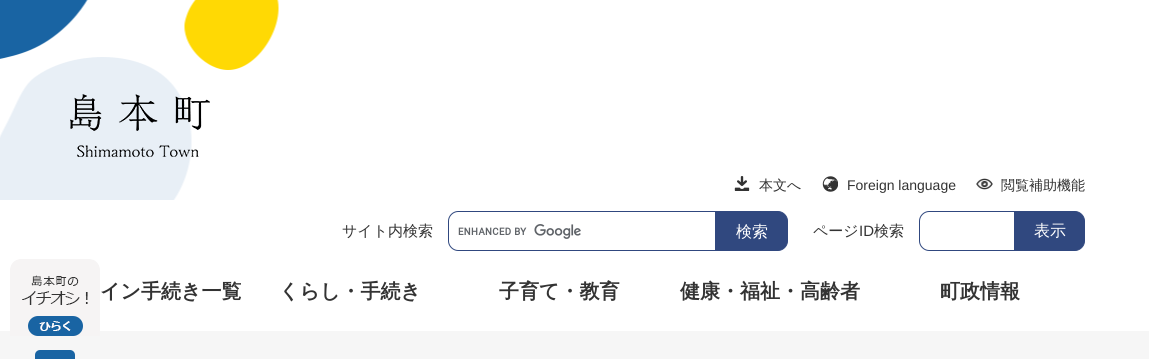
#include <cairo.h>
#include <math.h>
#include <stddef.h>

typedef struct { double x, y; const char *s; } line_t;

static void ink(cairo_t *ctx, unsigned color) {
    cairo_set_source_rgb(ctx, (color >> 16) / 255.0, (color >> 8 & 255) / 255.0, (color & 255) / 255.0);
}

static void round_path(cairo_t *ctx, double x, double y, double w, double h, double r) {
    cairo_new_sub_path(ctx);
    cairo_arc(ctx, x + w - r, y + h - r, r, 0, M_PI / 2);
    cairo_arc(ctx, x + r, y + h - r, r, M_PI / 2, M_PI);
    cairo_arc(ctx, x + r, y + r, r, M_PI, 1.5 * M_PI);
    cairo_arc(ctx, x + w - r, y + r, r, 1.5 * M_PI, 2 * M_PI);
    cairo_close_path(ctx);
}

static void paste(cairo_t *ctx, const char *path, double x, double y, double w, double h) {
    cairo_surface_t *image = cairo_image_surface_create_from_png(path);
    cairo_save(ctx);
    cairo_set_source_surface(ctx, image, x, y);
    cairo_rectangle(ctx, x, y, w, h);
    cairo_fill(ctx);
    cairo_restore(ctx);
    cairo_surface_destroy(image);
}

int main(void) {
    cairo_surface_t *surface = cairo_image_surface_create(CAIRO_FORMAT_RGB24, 1149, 359);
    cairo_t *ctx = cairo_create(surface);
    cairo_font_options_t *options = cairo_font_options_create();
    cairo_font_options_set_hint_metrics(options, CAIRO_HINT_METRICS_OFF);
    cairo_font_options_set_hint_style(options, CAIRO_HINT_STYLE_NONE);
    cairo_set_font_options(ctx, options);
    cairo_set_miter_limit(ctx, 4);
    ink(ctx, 0xFFFFFF);
    cairo_paint(ctx);
    ink(ctx, 0xF6F6F6);
    cairo_rectangle(ctx, 0, 331, 1149, 28);
    cairo_fill(ctx);
    paste(ctx, "media/1.png", 10, 259, 90, 77);
    paste(ctx, "media/2.png", 0, 0, 279, 200);
    paste(ctx, "media/3.png", 70, 94, 140, 63);
    paste(ctx, "media/4.png", 734, 176, 16, 15);
    cairo_select_font_face(ctx, "WenQuanYi Zen Hei Medium", CAIRO_FONT_SLANT_NORMAL, CAIRO_FONT_WEIGHT_NORMAL);
    cairo_set_font_size(ctx, 14);
    ink(ctx, 0x333333);
    cairo_move_to(ctx, 759, 190);
    cairo_show_text(ctx, "本文へ");
    paste(ctx, "media/5.png", 822, 176, 16, 16);
    cairo_select_font_face(ctx, "Liberation Sans", CAIRO_FONT_SLANT_NORMAL, CAIRO_FONT_WEIGHT_NORMAL);
    cairo_move_to(ctx, 847, 190);
    cairo_show_text(ctx, "Foreign language");
    paste(ctx, "media/6.png", 976, 178, 17, 12);
    cairo_select_font_face(ctx, "WenQuanYi Zen Hei Medium", CAIRO_FONT_SLANT_NORMAL, CAIRO_FONT_WEIGHT_NORMAL);
    cairo_move_to(ctx, 1001, 190);
    cairo_show_text(ctx, "閲覧補助機能");
    cairo_set_font_size(ctx, 15);
    cairo_move_to(ctx, 342, 236);
    cairo_show_text(ctx, "サイト内検索");
    paste(ctx, "media/7.png", 458, 224, 123, 15);
    cairo_new_path(ctx);
    cairo_move_to(ctx, 458, 211.5);
    cairo_line_to(ctx, 715.5, 211.5);
    cairo_line_to(ctx, 715.5, 250.5);
    cairo_line_to(ctx, 458, 250.5);
    cairo_curve_to(ctx, 453, 250.5, 448.5, 246, 448.5, 241);
    cairo_line_to(ctx, 448.5, 221);
    cairo_curve_to(ctx, 448.5, 216, 453, 211.5, 458, 211.5);
    cairo_close_path(ctx);
    ink(ctx, 0x30487F);
    cairo_set_line_width(ctx, 1);
    cairo_stroke(ctx);
    cairo_new_path(ctx);
    cairo_move_to(ctx, 716.5, 211.5);
    cairo_line_to(ctx, 778, 211.5);
    cairo_curve_to(ctx, 783, 211.5, 787.5, 216, 787.5, 221);
    cairo_line_to(ctx, 787.5, 241);
    cairo_curve_to(ctx, 787.5, 246, 783, 250.5, 778, 250.5);
    cairo_line_to(ctx, 716.5, 250.5);
    cairo_close_path(ctx);
    cairo_fill_preserve(ctx);
    cairo_stroke(ctx);
    cairo_set_font_size(ctx, 16);
    ink(ctx, 0xFFFFFF);
    cairo_move_to(ctx, 736, 237);
    cairo_show_text(ctx, "検索");
    cairo_set_font_size(ctx, 15);
    ink(ctx, 0x333333);
    cairo_move_to(ctx, 813, 236);
    cairo_show_text(ctx, "ページ");
    cairo_select_font_face(ctx, "Liberation Sans", CAIRO_FONT_SLANT_NORMAL, CAIRO_FONT_WEIGHT_NORMAL);
    cairo_move_to(ctx, 859, 236);
    cairo_show_text(ctx, "ID");
    cairo_select_font_face(ctx, "WenQuanYi Zen Hei Medium", CAIRO_FONT_SLANT_NORMAL, CAIRO_FONT_WEIGHT_NORMAL);
    cairo_move_to(ctx, 874, 236);
    cairo_show_text(ctx, "検索");
    cairo_new_path(ctx);
    cairo_move_to(ctx, 929, 211.5);
    cairo_line_to(ctx, 1014.5, 211.5);
    cairo_line_to(ctx, 1014.5, 250.5);
    cairo_line_to(ctx, 929, 250.5);
    cairo_curve_to(ctx, 924, 250.5, 919.5, 246, 919.5, 241);
    cairo_line_to(ctx, 919.5, 221);
    cairo_curve_to(ctx, 919.5, 216, 924, 211.5, 929, 211.5);
    cairo_close_path(ctx);
    ink(ctx, 0x30487F);
    cairo_stroke(ctx);
    cairo_new_path(ctx);
    cairo_move_to(ctx, 1015.5, 211.5);
    cairo_line_to(ctx, 1075, 211.5);
    cairo_curve_to(ctx, 1080, 211.5, 1084.5, 216, 1084.5, 221);
    cairo_line_to(ctx, 1084.5, 241);
    cairo_curve_to(ctx, 1084.5, 246, 1080, 250.5, 1075, 250.5);
    cairo_line_to(ctx, 1015.5, 250.5);
    cairo_close_path(ctx);
    cairo_fill_preserve(ctx);
    cairo_stroke(ctx);
    cairo_set_font_size(ctx, 16);
    ink(ctx, 0xFFFFFF);
    cairo_move_to(ctx, 1034, 236);
    cairo_show_text(ctx, "表示");
    cairo_select_font_face(ctx, "WenQuanYi Zen Hei", CAIRO_FONT_SLANT_NORMAL, CAIRO_FONT_WEIGHT_BOLD);
    cairo_set_font_size(ctx, 20);
    ink(ctx, 0x333333);
    {
        static const line_t items[] = {
            {100, 298, "イン手続き一覧"},
            {279, 298, "くらし・手続き"},
            {499, 298, "子育て・教育"},
            {680, 298, "健康・福祉・高齢者"},
            {940, 298, "町政情報"},
        };
        for (size_t i = 0; i < sizeof items / sizeof *items; i++) {
            cairo_move_to(ctx, items[i].x, items[i].y);
            cairo_show_text(ctx, items[i].s);
        }
    }
    ink(ctx, 0x1964A3);
    round_path(ctx, 35, 350, 40, 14, 5);
    cairo_fill(ctx);
    cairo_surface_write_to_png(surface, "image.png");
    cairo_font_options_destroy(options);
    cairo_destroy(ctx);
    cairo_surface_destroy(surface);
    return 0;
}
